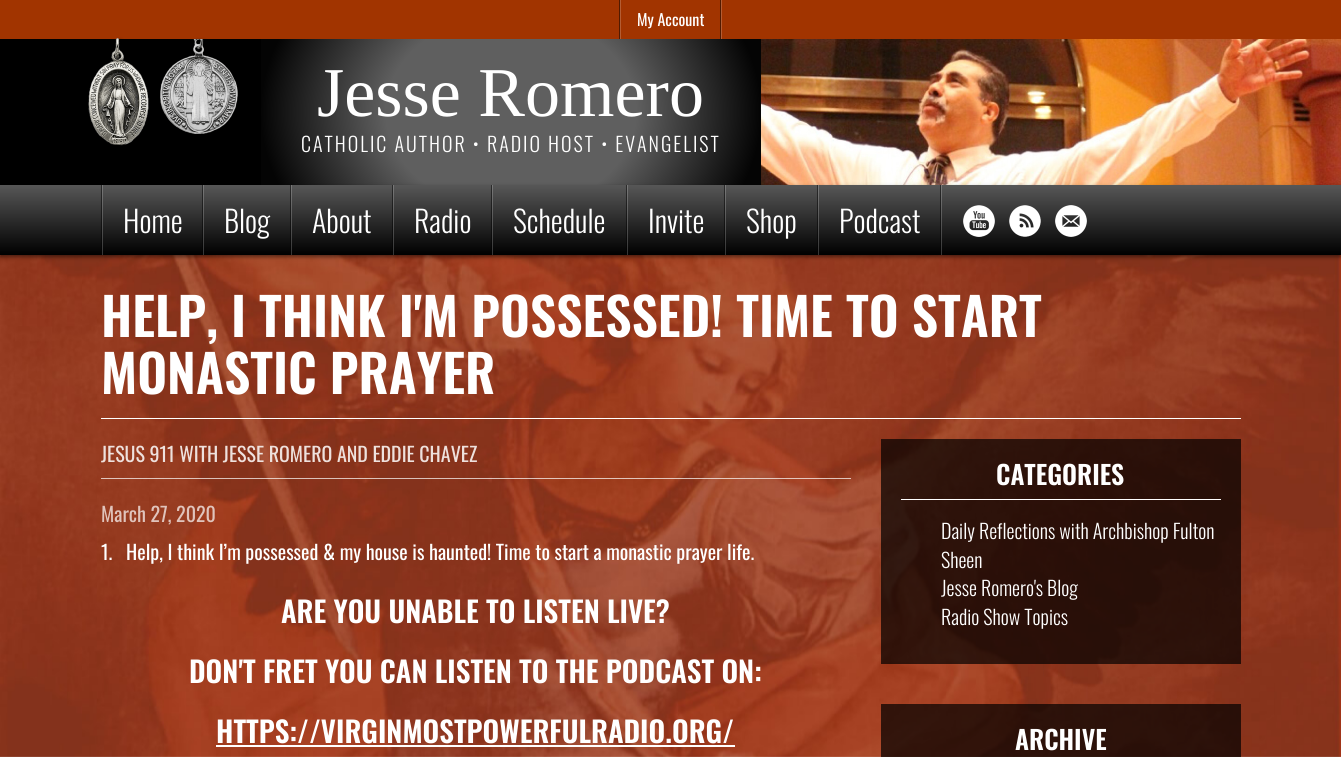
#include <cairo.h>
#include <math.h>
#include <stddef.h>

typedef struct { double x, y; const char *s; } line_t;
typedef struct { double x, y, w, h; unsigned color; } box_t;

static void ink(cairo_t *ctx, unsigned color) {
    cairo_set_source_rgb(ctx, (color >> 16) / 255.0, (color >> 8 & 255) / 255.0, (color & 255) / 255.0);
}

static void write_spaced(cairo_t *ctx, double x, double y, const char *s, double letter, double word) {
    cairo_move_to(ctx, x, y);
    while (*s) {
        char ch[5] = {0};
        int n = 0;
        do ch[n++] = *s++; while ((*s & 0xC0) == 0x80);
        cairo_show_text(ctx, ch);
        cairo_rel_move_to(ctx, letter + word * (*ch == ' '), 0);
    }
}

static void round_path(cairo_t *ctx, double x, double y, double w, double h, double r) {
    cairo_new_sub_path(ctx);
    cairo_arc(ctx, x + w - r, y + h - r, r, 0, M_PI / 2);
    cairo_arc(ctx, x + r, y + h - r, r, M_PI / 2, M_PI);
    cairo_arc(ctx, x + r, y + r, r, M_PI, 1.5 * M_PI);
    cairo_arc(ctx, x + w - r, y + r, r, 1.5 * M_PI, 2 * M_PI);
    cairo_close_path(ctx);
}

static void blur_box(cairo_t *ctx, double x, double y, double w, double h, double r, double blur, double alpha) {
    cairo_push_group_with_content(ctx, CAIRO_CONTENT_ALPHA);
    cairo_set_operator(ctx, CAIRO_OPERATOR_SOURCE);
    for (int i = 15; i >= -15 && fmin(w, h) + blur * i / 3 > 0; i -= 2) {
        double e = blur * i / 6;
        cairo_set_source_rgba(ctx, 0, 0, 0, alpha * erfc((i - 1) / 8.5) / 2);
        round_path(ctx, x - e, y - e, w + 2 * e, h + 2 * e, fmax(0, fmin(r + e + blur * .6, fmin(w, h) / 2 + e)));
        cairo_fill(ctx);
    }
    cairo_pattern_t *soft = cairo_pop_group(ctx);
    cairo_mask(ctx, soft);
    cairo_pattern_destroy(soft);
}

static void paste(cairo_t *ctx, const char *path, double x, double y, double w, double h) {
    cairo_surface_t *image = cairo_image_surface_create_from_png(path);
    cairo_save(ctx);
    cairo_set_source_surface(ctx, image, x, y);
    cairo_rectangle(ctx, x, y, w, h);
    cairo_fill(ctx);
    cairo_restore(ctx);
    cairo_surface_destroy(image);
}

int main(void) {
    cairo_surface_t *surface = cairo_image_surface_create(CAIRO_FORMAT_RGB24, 1341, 757);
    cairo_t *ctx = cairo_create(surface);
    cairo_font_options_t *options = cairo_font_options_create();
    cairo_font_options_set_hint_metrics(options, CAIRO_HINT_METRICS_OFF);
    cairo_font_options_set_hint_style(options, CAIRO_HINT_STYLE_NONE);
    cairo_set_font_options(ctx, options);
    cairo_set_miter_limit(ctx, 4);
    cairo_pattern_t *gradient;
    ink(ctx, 0xFFFFFF);
    cairo_paint(ctx);
    {
        static const box_t items[] = {
            {0, 0, 1341, 39, 0xA13400},
            {721, 0, 1, 39, 0xB45D33},
            {619, 0, 1, 39, 0x511A00},
            {720, 0, 1, 39, 0x511A00},
            {620, 0, 1, 39, 0xB45D33},
        };
        for (size_t i = 0; i < sizeof items / sizeof *items; i++) {
            ink(ctx, items[i].color);
            cairo_rectangle(ctx, items[i].x, items[i].y, items[i].w, items[i].h);
            cairo_fill(ctx);
        }
    }
    cairo_select_font_face(ctx, "Oswald", CAIRO_FONT_SLANT_NORMAL, CAIRO_FONT_WEIGHT_NORMAL);
    cairo_set_font_size(ctx, 16);
    ink(ctx, 0xFFFFFF);
    cairo_move_to(ctx, 637, 26);
    cairo_show_text(ctx, "My Account");
    ink(ctx, 0x000000);
    cairo_rectangle(ctx, 0, 39, 261, 146);
    cairo_fill(ctx);
    paste(ctx, "media/1.png", 761, 39, 580, 146);
    paste(ctx, "media/2.png", 88, 37, 150, 109);
    gradient = cairo_pattern_create_radial(0, 0, 0, 0, 0, 1);
    cairo_pattern_set_matrix(gradient, &(cairo_matrix_t){1.0 / 250, 0, 0, 1.0 / 196, -1.0 * 511 / 250, -1.0 * 112 / 196});
    cairo_pattern_add_color_stop_rgba(gradient, 0.5, 0.373, 0.373, 0.373, 1);
    cairo_pattern_add_color_stop_rgba(gradient, 1, 0.016, 0.016, 0.016, 1);
    cairo_set_source(ctx, gradient);
    cairo_pattern_destroy(gradient);
    cairo_rectangle(ctx, 261, 39, 500, 146);
    cairo_fill(ctx);
    cairo_select_font_face(ctx, "Liberation Serif", CAIRO_FONT_SLANT_NORMAL, CAIRO_FONT_WEIGHT_NORMAL);
    cairo_set_font_size(ctx, 70);
    ink(ctx, 0xFFFFFF);
    cairo_move_to(ctx, 317, 116);
    cairo_show_text(ctx, "Jesse Romero");
    cairo_select_font_face(ctx, "Oswald Light", CAIRO_FONT_SLANT_NORMAL, CAIRO_FONT_WEIGHT_NORMAL);
    cairo_set_font_size(ctx, 20);
    write_spaced(ctx, 301, 152, "CATHOLIC AUTHOR • RADIO HOST • EVANGELIST", 2, 0);
    paste(ctx, "media/6.png", 0, 255, 1341, 502);
    ink(ctx, 0x000000);
    blur_box(ctx, 0, 187, 1341, 70, 0, 2, 0.5);
    gradient = cairo_pattern_create_linear(671, 185, 671, 255);
    cairo_pattern_add_color_stop_rgba(gradient, 0, 0.341, 0.341, 0.341, 1);
    cairo_pattern_add_color_stop_rgba(gradient, 1, 0, 0, 0, 1);
    cairo_set_source(ctx, gradient);
    cairo_pattern_destroy(gradient);
    cairo_rectangle(ctx, 0, 185, 1341, 70);
    cairo_fill(ctx);
    gradient = cairo_pattern_create_linear(671, 185, 671, 255);
    cairo_pattern_add_color_stop_rgba(gradient, 0, 0.475, 0.475, 0.475, 1);
    cairo_pattern_add_color_stop_rgba(gradient, 1, 0.2, 0.2, 0.2, 1);
    cairo_set_source(ctx, gradient);
    cairo_pattern_destroy(gradient);
    cairo_rectangle(ctx, 818, 185, 1, 70);
    cairo_fill(ctx);
    gradient = cairo_pattern_create_linear(671, 185, 671, 255);
    cairo_pattern_add_color_stop_rgba(gradient, 0, 0.173, 0.173, 0.173, 1);
    cairo_pattern_add_color_stop_rgba(gradient, 1, 0, 0, 0, 1);
    cairo_set_source(ctx, gradient);
    cairo_pattern_destroy(gradient);
    cairo_rectangle(ctx, 940, 185, 1, 70);
    cairo_fill(ctx);
    cairo_rectangle(ctx, 817, 185, 1, 70);
    cairo_fill(ctx);
    gradient = cairo_pattern_create_linear(671, 185, 671, 255);
    cairo_pattern_add_color_stop_rgba(gradient, 0, 0.475, 0.475, 0.475, 1);
    cairo_pattern_add_color_stop_rgba(gradient, 1, 0.2, 0.2, 0.2, 1);
    cairo_set_source(ctx, gradient);
    cairo_pattern_destroy(gradient);
    cairo_rectangle(ctx, 941, 185, 1, 70);
    cairo_fill(ctx);
    cairo_rectangle(ctx, 725, 185, 1, 70);
    cairo_fill(ctx);
    gradient = cairo_pattern_create_linear(671, 185, 671, 255);
    cairo_pattern_add_color_stop_rgba(gradient, 0, 0.173, 0.173, 0.173, 1);
    cairo_pattern_add_color_stop_rgba(gradient, 1, 0, 0, 0, 1);
    cairo_set_source(ctx, gradient);
    cairo_pattern_destroy(gradient);
    cairo_rectangle(ctx, 724, 185, 1, 70);
    cairo_fill(ctx);
    gradient = cairo_pattern_create_linear(671, 185, 671, 255);
    cairo_pattern_add_color_stop_rgba(gradient, 0, 0.475, 0.475, 0.475, 1);
    cairo_pattern_add_color_stop_rgba(gradient, 1, 0.2, 0.2, 0.2, 1);
    cairo_set_source(ctx, gradient);
    cairo_pattern_destroy(gradient);
    cairo_rectangle(ctx, 627, 185, 1, 70);
    cairo_fill(ctx);
    gradient = cairo_pattern_create_linear(671, 185, 671, 255);
    cairo_pattern_add_color_stop_rgba(gradient, 0, 0.173, 0.173, 0.173, 1);
    cairo_pattern_add_color_stop_rgba(gradient, 1, 0, 0, 0, 1);
    cairo_set_source(ctx, gradient);
    cairo_pattern_destroy(gradient);
    cairo_rectangle(ctx, 626, 185, 1, 70);
    cairo_fill(ctx);
    gradient = cairo_pattern_create_linear(671, 185, 671, 255);
    cairo_pattern_add_color_stop_rgba(gradient, 0, 0.475, 0.475, 0.475, 1);
    cairo_pattern_add_color_stop_rgba(gradient, 1, 0.2, 0.2, 0.2, 1);
    cairo_set_source(ctx, gradient);
    cairo_pattern_destroy(gradient);
    cairo_rectangle(ctx, 492, 185, 1, 70);
    cairo_fill(ctx);
    gradient = cairo_pattern_create_linear(671, 185, 671, 255);
    cairo_pattern_add_color_stop_rgba(gradient, 0, 0.173, 0.173, 0.173, 1);
    cairo_pattern_add_color_stop_rgba(gradient, 1, 0, 0, 0, 1);
    cairo_set_source(ctx, gradient);
    cairo_pattern_destroy(gradient);
    cairo_rectangle(ctx, 491, 185, 1, 70);
    cairo_fill(ctx);
    gradient = cairo_pattern_create_linear(671, 185, 671, 255);
    cairo_pattern_add_color_stop_rgba(gradient, 0, 0.475, 0.475, 0.475, 1);
    cairo_pattern_add_color_stop_rgba(gradient, 1, 0.2, 0.2, 0.2, 1);
    cairo_set_source(ctx, gradient);
    cairo_pattern_destroy(gradient);
    cairo_rectangle(ctx, 393, 185, 1, 70);
    cairo_fill(ctx);
    gradient = cairo_pattern_create_linear(671, 185, 671, 255);
    cairo_pattern_add_color_stop_rgba(gradient, 0, 0.173, 0.173, 0.173, 1);
    cairo_pattern_add_color_stop_rgba(gradient, 1, 0, 0, 0, 1);
    cairo_set_source(ctx, gradient);
    cairo_pattern_destroy(gradient);
    cairo_rectangle(ctx, 392, 185, 1, 70);
    cairo_fill(ctx);
    gradient = cairo_pattern_create_linear(671, 185, 671, 255);
    cairo_pattern_add_color_stop_rgba(gradient, 0, 0.475, 0.475, 0.475, 1);
    cairo_pattern_add_color_stop_rgba(gradient, 1, 0.2, 0.2, 0.2, 1);
    cairo_set_source(ctx, gradient);
    cairo_pattern_destroy(gradient);
    cairo_rectangle(ctx, 291, 185, 1, 70);
    cairo_fill(ctx);
    gradient = cairo_pattern_create_linear(671, 185, 671, 255);
    cairo_pattern_add_color_stop_rgba(gradient, 0, 0.173, 0.173, 0.173, 1);
    cairo_pattern_add_color_stop_rgba(gradient, 1, 0, 0, 0, 1);
    cairo_set_source(ctx, gradient);
    cairo_pattern_destroy(gradient);
    cairo_rectangle(ctx, 290, 185, 1, 70);
    cairo_fill(ctx);
    gradient = cairo_pattern_create_linear(671, 185, 671, 255);
    cairo_pattern_add_color_stop_rgba(gradient, 0, 0.475, 0.475, 0.475, 1);
    cairo_pattern_add_color_stop_rgba(gradient, 1, 0.2, 0.2, 0.2, 1);
    cairo_set_source(ctx, gradient);
    cairo_pattern_destroy(gradient);
    cairo_rectangle(ctx, 203, 185, 1, 70);
    cairo_fill(ctx);
    gradient = cairo_pattern_create_linear(671, 185, 671, 255);
    cairo_pattern_add_color_stop_rgba(gradient, 0, 0.173, 0.173, 0.173, 1);
    cairo_pattern_add_color_stop_rgba(gradient, 1, 0, 0, 0, 1);
    cairo_set_source(ctx, gradient);
    cairo_pattern_destroy(gradient);
    cairo_rectangle(ctx, 202, 185, 1, 70);
    cairo_fill(ctx);
    gradient = cairo_pattern_create_linear(671, 185, 671, 255);
    cairo_pattern_add_color_stop_rgba(gradient, 0, 0.475, 0.475, 0.475, 1);
    cairo_pattern_add_color_stop_rgba(gradient, 1, 0.2, 0.2, 0.2, 1);
    cairo_set_source(ctx, gradient);
    cairo_pattern_destroy(gradient);
    cairo_rectangle(ctx, 102, 185, 1, 70);
    cairo_fill(ctx);
    gradient = cairo_pattern_create_linear(671, 185, 671, 255);
    cairo_pattern_add_color_stop_rgba(gradient, 0, 0.173, 0.173, 0.173, 1);
    cairo_pattern_add_color_stop_rgba(gradient, 1, 0, 0, 0, 1);
    cairo_set_source(ctx, gradient);
    cairo_pattern_destroy(gradient);
    cairo_rectangle(ctx, 101, 185, 1, 70);
    cairo_fill(ctx);
    cairo_set_font_size(ctx, 30);
    ink(ctx, 0xFFFFFF);
    {
        static const line_t items[] = {
            {123, 233, "Home"},
            {224, 233, "Blog"},
            {312, 233, "About"},
            {414, 233, "Radio"},
            {513, 233, "Schedule"},
            {648, 233, "Invite"},
            {746, 233, "Shop"},
            {839, 233, "Podcast"},
        };
        for (size_t i = 0; i < sizeof items / sizeof *items; i++) {
            cairo_move_to(ctx, items[i].x, items[i].y);
            cairo_show_text(ctx, items[i].s);
        }
    }
    paste(ctx, "media/3.png", 963, 205, 32, 32);
    paste(ctx, "media/4.png", 1009, 205, 32, 32);
    paste(ctx, "media/5.png", 1055, 205, 32, 32);
    cairo_rectangle(ctx, 101, 418, 1140, 1);
    cairo_fill(ctx);
    cairo_select_font_face(ctx, "Oswald SemiBold", CAIRO_FONT_SLANT_NORMAL, CAIRO_FONT_WEIGHT_NORMAL);
    cairo_set_font_size(ctx, 52);
    cairo_move_to(ctx, 101, 337);
    cairo_show_text(ctx, "HELP, I THINK I'M POSSESSED! TIME TO START");
    cairo_move_to(ctx, 101, 394);
    cairo_show_text(ctx, "MONASTIC PRAYER");
    cairo_select_font_face(ctx, "Oswald", CAIRO_FONT_SLANT_NORMAL, CAIRO_FONT_WEIGHT_NORMAL);
    cairo_set_font_size(ctx, 20);
    ink(ctx, 0xEEE1DD);
    cairo_move_to(ctx, 101, 462);
    cairo_show_text(ctx, "JESUS 911 WITH JESSE ROMERO AND EDDIE CHAVEZ");
    cairo_set_source_rgba(ctx, 1, 1, 1, 0.7);
    cairo_rectangle(ctx, 101, 478, 750, 1);
    cairo_fill(ctx);
    ink(ctx, 0xE0C4BC);
    cairo_move_to(ctx, 101, 522);
    cairo_show_text(ctx, "March 27, 2020");
    ink(ctx, 0xFFFFFF);
    cairo_move_to(ctx, 101, 560);
    cairo_show_text(ctx, "1.   Help, I think I’m possessed & my house is haunted! Time to start a monastic prayer life.");
    cairo_select_font_face(ctx, "Oswald SemiBold", CAIRO_FONT_SLANT_NORMAL, CAIRO_FONT_WEIGHT_NORMAL);
    cairo_set_font_size(ctx, 29);
    {
        static const line_t items[] = {
            {281, 623, "ARE YOU UNABLE TO LISTEN LIVE?"},
            {189, 683, "DON'T FRET YOU CAN LISTEN TO THE PODCAST ON:"},
            {216, 743, "HTTPS://VIRGINMOSTPOWERFULRADIO.ORG/"},
        };
        for (size_t i = 0; i < sizeof items / sizeof *items; i++) {
            cairo_move_to(ctx, items[i].x, items[i].y);
            cairo_show_text(ctx, items[i].s);
        }
    }
    cairo_rectangle(ctx, 216, 745, 519, 2);
    cairo_fill(ctx);
    cairo_set_source_rgba(ctx, 0, 0, 0, 0.7);
    cairo_rectangle(ctx, 881, 439, 360, 225);
    cairo_fill(ctx);
    ink(ctx, 0xFFFFFF);
    cairo_rectangle(ctx, 901, 499, 320, 1);
    cairo_fill(ctx);
    cairo_set_font_size(ctx, 26);
    cairo_move_to(ctx, 996, 485);
    cairo_show_text(ctx, "CATEGORIES");
    cairo_select_font_face(ctx, "Oswald Light", CAIRO_FONT_SLANT_NORMAL, CAIRO_FONT_WEIGHT_NORMAL);
    cairo_set_font_size(ctx, 20);
    {
        static const line_t items[] = {
            {941, 539, "Daily Reflections with Archbishop Fulton"},
            {941, 568, "Sheen"},
            {941, 596, "Jesse Romero's Blog"},
            {941, 625, "Radio Show Topics"},
        };
        for (size_t i = 0; i < sizeof items / sizeof *items; i++) {
            cairo_move_to(ctx, items[i].x, items[i].y);
            cairo_show_text(ctx, items[i].s);
        }
    }
    cairo_set_source_rgba(ctx, 0, 0, 0, 0.7);
    cairo_rectangle(ctx, 881, 704, 360, 53);
    cairo_fill(ctx);
    cairo_select_font_face(ctx, "Oswald SemiBold", CAIRO_FONT_SLANT_NORMAL, CAIRO_FONT_WEIGHT_NORMAL);
    cairo_set_font_size(ctx, 26);
    ink(ctx, 0xFFFFFF);
    cairo_move_to(ctx, 1015, 750);
    cairo_show_text(ctx, "ARCHIVE");
    cairo_surface_write_to_png(surface, "image.png");
    cairo_font_options_destroy(options);
    cairo_destroy(ctx);
    cairo_surface_destroy(surface);
    return 0;
}
